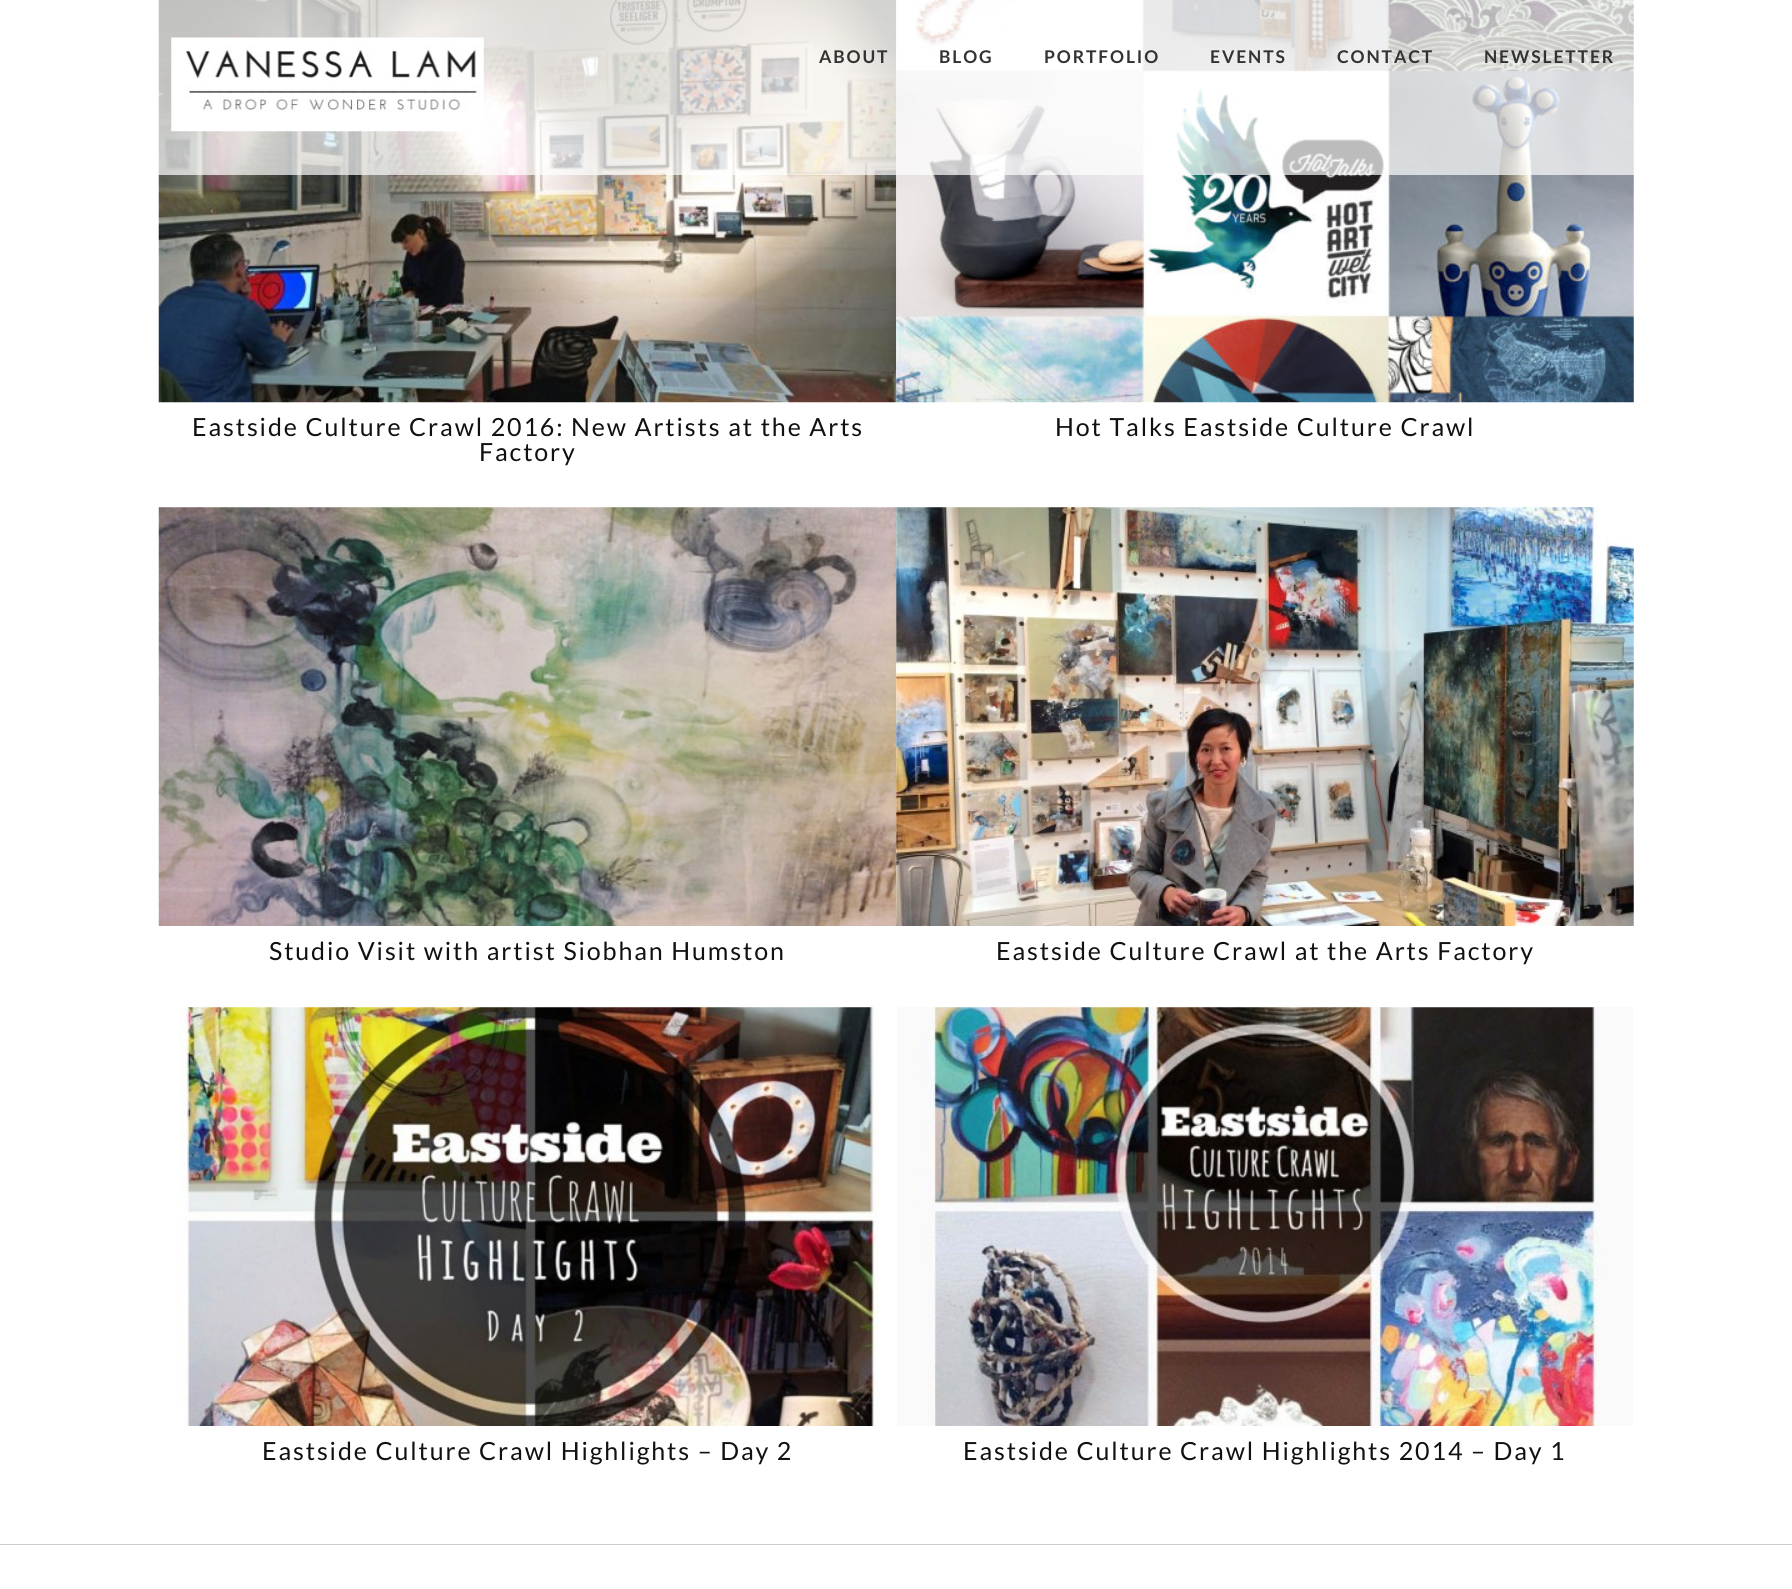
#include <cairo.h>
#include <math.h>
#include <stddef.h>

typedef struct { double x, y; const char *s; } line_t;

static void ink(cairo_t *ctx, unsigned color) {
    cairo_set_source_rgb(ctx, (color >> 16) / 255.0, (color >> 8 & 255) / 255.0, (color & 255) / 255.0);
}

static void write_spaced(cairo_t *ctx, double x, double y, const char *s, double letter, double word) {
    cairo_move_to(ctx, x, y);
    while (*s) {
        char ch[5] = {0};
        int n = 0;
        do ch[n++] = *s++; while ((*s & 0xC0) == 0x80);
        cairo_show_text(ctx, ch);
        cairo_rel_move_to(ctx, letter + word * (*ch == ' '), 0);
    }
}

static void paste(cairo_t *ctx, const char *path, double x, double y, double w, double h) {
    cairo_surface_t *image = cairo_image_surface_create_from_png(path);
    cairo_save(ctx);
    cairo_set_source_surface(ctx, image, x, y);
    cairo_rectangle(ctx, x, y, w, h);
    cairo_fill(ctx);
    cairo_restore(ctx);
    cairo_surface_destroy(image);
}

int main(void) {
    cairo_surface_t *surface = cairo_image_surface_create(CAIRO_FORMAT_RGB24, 1792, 1589);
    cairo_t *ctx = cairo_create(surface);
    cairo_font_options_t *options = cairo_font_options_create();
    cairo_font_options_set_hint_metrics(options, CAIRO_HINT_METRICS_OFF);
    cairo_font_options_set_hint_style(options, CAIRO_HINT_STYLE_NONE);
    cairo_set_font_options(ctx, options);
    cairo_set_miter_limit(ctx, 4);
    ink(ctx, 0xFFFFFF);
    cairo_paint(ctx);
    paste(ctx, "media/2.png", 158, 0, 739, 403);
    paste(ctx, "media/3.png", 896, 0, 738, 403);
    cairo_set_source_rgba(ctx, 1, 1, 1, 0.7);
    cairo_rectangle(ctx, 158, 0, 1476, 175);
    cairo_fill(ctx);
    paste(ctx, "media/1.png", 171, 37, 313, 95);
    cairo_select_font_face(ctx, "Lato", CAIRO_FONT_SLANT_NORMAL, CAIRO_FONT_WEIGHT_BOLD);
    cairo_set_font_size(ctx, 17.5);
    ink(ctx, 0x333333);
    {
        static const line_t items[] = {
            {819, 63, "ABOUT"},
            {939, 63, "BLOG"},
            {1044, 63, "PORTFOLIO"},
            {1210, 63, "EVENTS"},
            {1337, 63, "CONTACT"},
            {1484, 63, "NEWSLETTER"},
        };
        for (size_t i = 0; i < sizeof items / sizeof *items; i++) {
            write_spaced(ctx, items[i].x, items[i].y, items[i].s, 1.88, 0);
        }
    }
    cairo_select_font_face(ctx, "Lato", CAIRO_FONT_SLANT_NORMAL, CAIRO_FONT_WEIGHT_NORMAL);
    cairo_set_font_size(ctx, 25);
    ink(ctx, 0x111111);
    {
        static const line_t items[] = {
            {192, 436, "Eastside Culture Crawl 2016: New Artists at the Arts"},
            {479, 461, "Factory"},
            {1055, 436, "Hot Talks Eastside Culture Crawl"},
        };
        for (size_t i = 0; i < sizeof items / sizeof *items; i++) {
            write_spaced(ctx, items[i].x, items[i].y, items[i].s, 1.88, 0);
        }
    }
    paste(ctx, "media/4.png", 158, 507, 739, 419);
    write_spaced(ctx, 269, 960, "Studio Visit with artist Siobhan Humston", 1.88, 0);
    paste(ctx, "media/5.png", 896, 507, 738, 419);
    write_spaced(ctx, 996, 960, "Eastside Culture Crawl at the Arts Factory", 1.88, 0);
    paste(ctx, "media/6.png", 179, 1007, 700, 419);
    write_spaced(ctx, 262, 1460, "Eastside Culture Crawl Highlights – Day 2", 1.88, 0);
    paste(ctx, "media/7.png", 897, 1007, 736, 419);
    write_spaced(ctx, 963, 1460, "Eastside Culture Crawl Highlights 2014 – Day 1", 1.88, 0);
    ink(ctx, 0xCCCCCC);
    cairo_rectangle(ctx, 0, 1544, 1792, 1);
    cairo_fill(ctx);
    cairo_surface_write_to_png(surface, "image.png");
    cairo_font_options_destroy(options);
    cairo_destroy(ctx);
    cairo_surface_destroy(surface);
    return 0;
}
